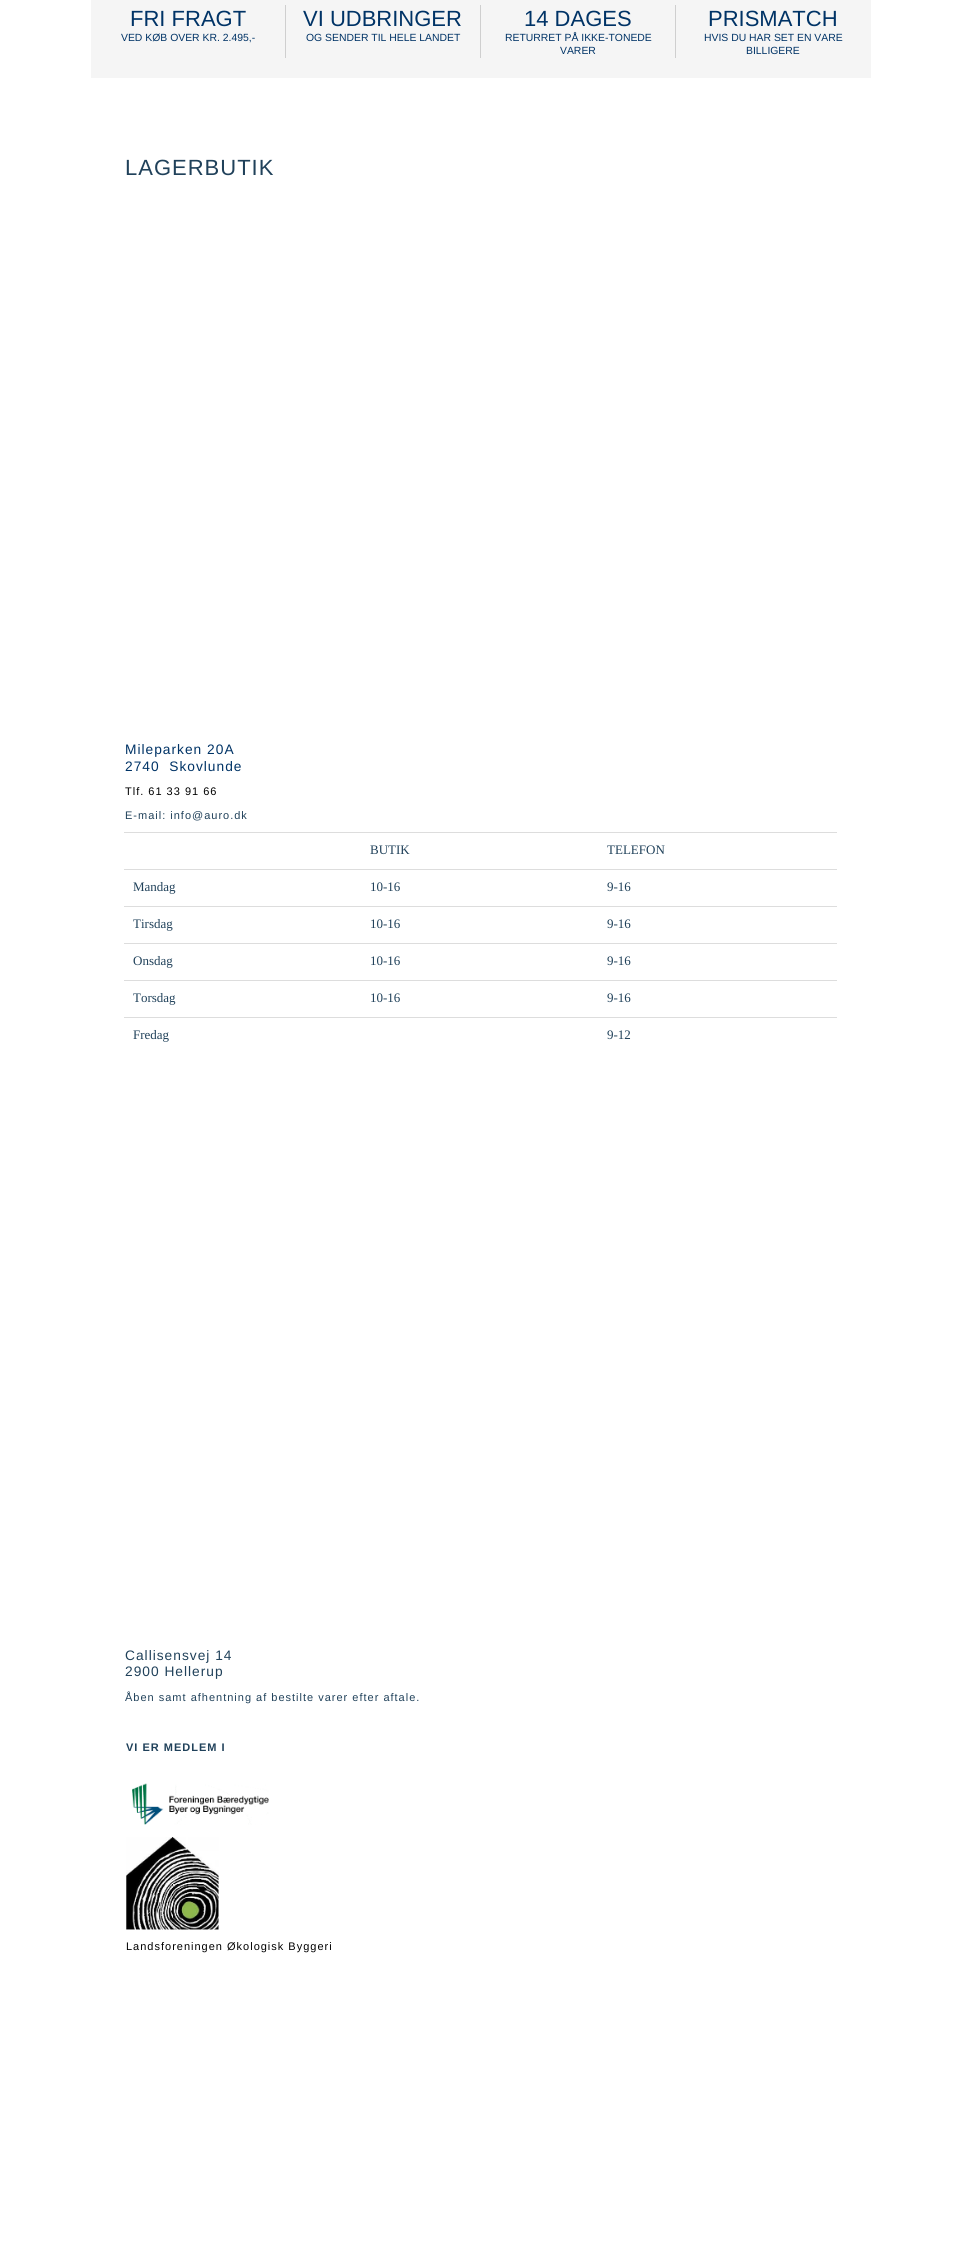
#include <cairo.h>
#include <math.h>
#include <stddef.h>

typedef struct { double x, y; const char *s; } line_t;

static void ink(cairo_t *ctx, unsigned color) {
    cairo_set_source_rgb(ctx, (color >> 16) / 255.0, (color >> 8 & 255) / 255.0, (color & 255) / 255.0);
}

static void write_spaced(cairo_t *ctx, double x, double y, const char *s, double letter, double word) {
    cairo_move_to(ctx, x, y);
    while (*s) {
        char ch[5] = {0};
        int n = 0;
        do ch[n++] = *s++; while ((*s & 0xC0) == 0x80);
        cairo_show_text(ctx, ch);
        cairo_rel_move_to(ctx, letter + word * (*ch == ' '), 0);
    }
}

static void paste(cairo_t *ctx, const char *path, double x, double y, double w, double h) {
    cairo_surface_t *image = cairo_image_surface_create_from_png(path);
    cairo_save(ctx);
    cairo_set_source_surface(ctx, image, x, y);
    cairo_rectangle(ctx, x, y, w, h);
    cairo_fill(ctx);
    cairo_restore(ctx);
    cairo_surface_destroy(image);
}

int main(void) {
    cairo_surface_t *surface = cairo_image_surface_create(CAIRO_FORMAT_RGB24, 961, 2258);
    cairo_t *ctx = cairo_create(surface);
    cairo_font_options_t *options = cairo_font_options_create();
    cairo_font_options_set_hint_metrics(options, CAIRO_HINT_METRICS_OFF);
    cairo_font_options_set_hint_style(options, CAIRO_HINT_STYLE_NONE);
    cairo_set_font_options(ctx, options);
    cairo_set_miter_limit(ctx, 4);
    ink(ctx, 0xFFFFFF);
    cairo_paint(ctx);
    ink(ctx, 0xF5F5F5);
    cairo_rectangle(ctx, 91, 0, 780, 78);
    cairo_fill(ctx);
    cairo_select_font_face(ctx, "Liberation Sans", CAIRO_FONT_SLANT_NORMAL, CAIRO_FONT_WEIGHT_NORMAL);
    cairo_set_font_size(ctx, 22);
    ink(ctx, 0x003366);
    cairo_move_to(ctx, 130, 26);
    cairo_show_text(ctx, "FRI FRAGT");
    ink(ctx, 0xCFCFCF);
    cairo_rectangle(ctx, 285, 5, 1, 53);
    cairo_fill(ctx);
    cairo_set_font_size(ctx, 10.4);
    ink(ctx, 0x003366);
    cairo_move_to(ctx, 121, 41);
    cairo_show_text(ctx, "VED KØB OVER KR. 2.495,-");
    cairo_set_font_size(ctx, 22);
    cairo_move_to(ctx, 303, 26);
    cairo_show_text(ctx, "VI UDBRINGER");
    ink(ctx, 0xCFCFCF);
    cairo_rectangle(ctx, 480, 5, 1, 53);
    cairo_fill(ctx);
    cairo_set_font_size(ctx, 10.4);
    ink(ctx, 0x003366);
    cairo_move_to(ctx, 306, 41);
    cairo_show_text(ctx, "OG SENDER TIL HELE LANDET");
    cairo_set_font_size(ctx, 22);
    cairo_move_to(ctx, 524, 26);
    cairo_show_text(ctx, "14 DAGES");
    ink(ctx, 0xCFCFCF);
    cairo_rectangle(ctx, 675, 5, 1, 53);
    cairo_fill(ctx);
    cairo_set_font_size(ctx, 10.4);
    ink(ctx, 0x003366);
    cairo_move_to(ctx, 505, 41);
    cairo_show_text(ctx, "RETURRET PÅ IKKE-TONEDE");
    cairo_move_to(ctx, 560, 54);
    cairo_show_text(ctx, "VARER");
    cairo_set_font_size(ctx, 22);
    cairo_move_to(ctx, 708, 26);
    cairo_show_text(ctx, "PRISMATCH");
    cairo_set_font_size(ctx, 10.4);
    cairo_move_to(ctx, 704, 41);
    cairo_show_text(ctx, "HVIS DU HAR SET EN VARE");
    cairo_move_to(ctx, 746, 54);
    cairo_show_text(ctx, "BILLIGERE");
    cairo_set_font_size(ctx, 22);
    ink(ctx, 0x20415A);
    write_spaced(ctx, 125, 175, "LAGERBUTIK", 1, 0);
    cairo_set_font_size(ctx, 13.75);
    ink(ctx, 0x003366);
    write_spaced(ctx, 125, 754, "Mileparken 20A", 1, 0);
    write_spaced(ctx, 125, 771, "2740  Skovlunde", 1, 0);
    cairo_set_font_size(ctx, 11);
    ink(ctx, 0x000000);
    write_spaced(ctx, 125, 795, "Tlf. 61 33 91 66", 1, 0);
    ink(ctx, 0x20415A);
    write_spaced(ctx, 125, 819, "E-mail: info@auro.dk", 1, 0);
    cairo_select_font_face(ctx, "Liberation Serif", CAIRO_FONT_SLANT_NORMAL, CAIRO_FONT_WEIGHT_NORMAL);
    cairo_set_font_size(ctx, 13);
    cairo_move_to(ctx, 370, 854);
    cairo_show_text(ctx, "BUTIK");
    ink(ctx, 0xDDDDDD);
    cairo_rectangle(ctx, 124, 832, 713, 1);
    cairo_fill(ctx);
    ink(ctx, 0x20415A);
    {
        static const line_t items[] = {
            {607, 854, "TELEFON"},
            {133, 891, "Mandag"},
            {370, 891, "10-16"},
        };
        for (size_t i = 0; i < sizeof items / sizeof *items; i++) {
            cairo_move_to(ctx, items[i].x, items[i].y);
            cairo_show_text(ctx, items[i].s);
        }
    }
    ink(ctx, 0xDDDDDD);
    cairo_rectangle(ctx, 124, 869, 713, 1);
    cairo_fill(ctx);
    ink(ctx, 0x20415A);
    {
        static const line_t items[] = {
            {607, 891, "9-16"},
            {133, 928, "Tirsdag"},
            {370, 928, "10-16"},
        };
        for (size_t i = 0; i < sizeof items / sizeof *items; i++) {
            cairo_move_to(ctx, items[i].x, items[i].y);
            cairo_show_text(ctx, items[i].s);
        }
    }
    ink(ctx, 0xDDDDDD);
    cairo_rectangle(ctx, 124, 906, 713, 1);
    cairo_fill(ctx);
    ink(ctx, 0x20415A);
    {
        static const line_t items[] = {
            {607, 928, "9-16"},
            {133, 965, "Onsdag"},
            {370, 965, "10-16"},
        };
        for (size_t i = 0; i < sizeof items / sizeof *items; i++) {
            cairo_move_to(ctx, items[i].x, items[i].y);
            cairo_show_text(ctx, items[i].s);
        }
    }
    ink(ctx, 0xDDDDDD);
    cairo_rectangle(ctx, 124, 943, 713, 1);
    cairo_fill(ctx);
    ink(ctx, 0x20415A);
    {
        static const line_t items[] = {
            {607, 965, "9-16"},
            {133, 1002, "Torsdag"},
            {370, 1002, "10-16"},
        };
        for (size_t i = 0; i < sizeof items / sizeof *items; i++) {
            cairo_move_to(ctx, items[i].x, items[i].y);
            cairo_show_text(ctx, items[i].s);
        }
    }
    ink(ctx, 0xDDDDDD);
    cairo_rectangle(ctx, 124, 980, 713, 1);
    cairo_fill(ctx);
    ink(ctx, 0x20415A);
    cairo_move_to(ctx, 607, 1002);
    cairo_show_text(ctx, "9-16");
    cairo_move_to(ctx, 133, 1039);
    cairo_show_text(ctx, "Fredag");
    ink(ctx, 0xDDDDDD);
    cairo_rectangle(ctx, 124, 1017, 713, 1);
    cairo_fill(ctx);
    ink(ctx, 0x20415A);
    cairo_move_to(ctx, 607, 1039);
    cairo_show_text(ctx, "9-12");
    cairo_select_font_face(ctx, "Liberation Sans", CAIRO_FONT_SLANT_NORMAL, CAIRO_FONT_WEIGHT_NORMAL);
    cairo_set_font_size(ctx, 13.75);
    write_spaced(ctx, 125, 1660, "Callisensvej 14", 1, 0);
    write_spaced(ctx, 125, 1676, "2900 Hellerup", 1, 0);
    cairo_set_font_size(ctx, 11);
    write_spaced(ctx, 125, 1701, "Åben samt afhentning af bestilte varer efter aftale.", 1, 0);
    cairo_select_font_face(ctx, "Liberation Sans", CAIRO_FONT_SLANT_NORMAL, CAIRO_FONT_WEIGHT_BOLD);
    write_spaced(ctx, 126, 1751, "VI ER MEDLEM I", 1, 0);
    paste(ctx, "media/1.png", 132, 1783, 137, 42);
    paste(ctx, "media/2.png", 126, 1837, 93, 93);
    cairo_select_font_face(ctx, "Liberation Sans", CAIRO_FONT_SLANT_NORMAL, CAIRO_FONT_WEIGHT_NORMAL);
    ink(ctx, 0x000000);
    write_spaced(ctx, 126, 1950, "Landsforeningen Økologisk Byggeri", 1, 0);
    cairo_surface_write_to_png(surface, "image.png");
    cairo_font_options_destroy(options);
    cairo_destroy(ctx);
    cairo_surface_destroy(surface);
    return 0;
}
